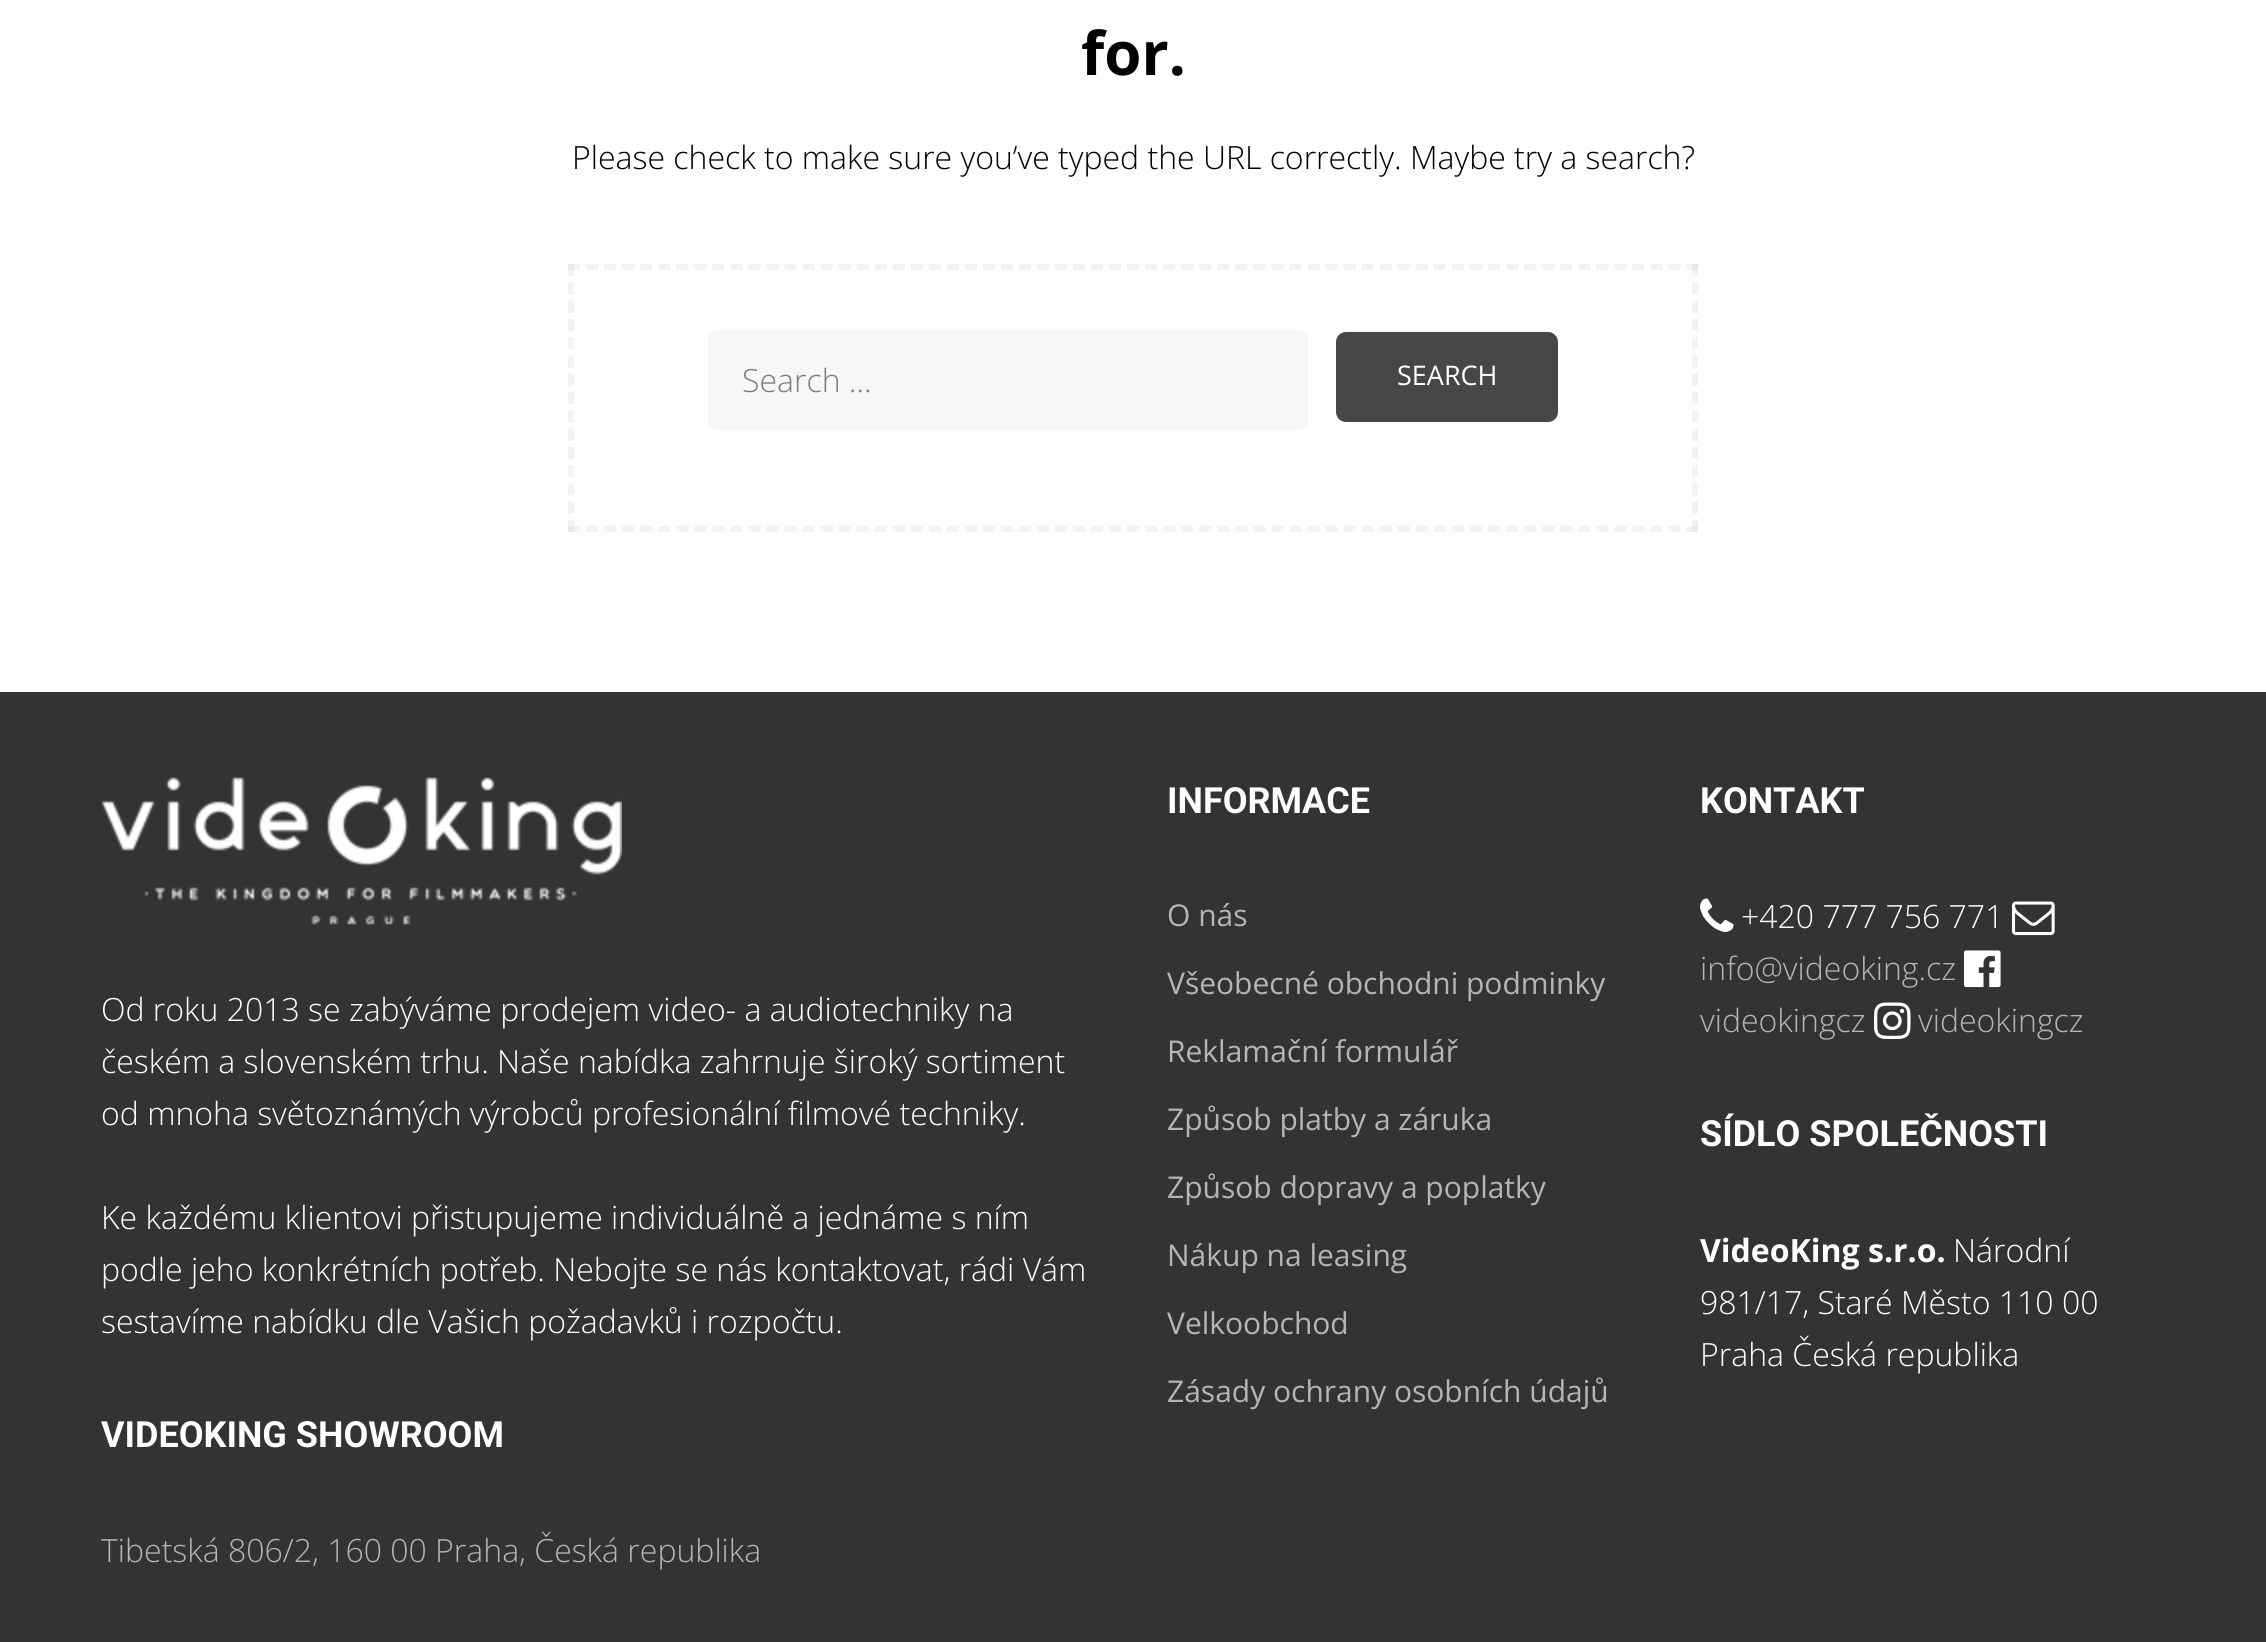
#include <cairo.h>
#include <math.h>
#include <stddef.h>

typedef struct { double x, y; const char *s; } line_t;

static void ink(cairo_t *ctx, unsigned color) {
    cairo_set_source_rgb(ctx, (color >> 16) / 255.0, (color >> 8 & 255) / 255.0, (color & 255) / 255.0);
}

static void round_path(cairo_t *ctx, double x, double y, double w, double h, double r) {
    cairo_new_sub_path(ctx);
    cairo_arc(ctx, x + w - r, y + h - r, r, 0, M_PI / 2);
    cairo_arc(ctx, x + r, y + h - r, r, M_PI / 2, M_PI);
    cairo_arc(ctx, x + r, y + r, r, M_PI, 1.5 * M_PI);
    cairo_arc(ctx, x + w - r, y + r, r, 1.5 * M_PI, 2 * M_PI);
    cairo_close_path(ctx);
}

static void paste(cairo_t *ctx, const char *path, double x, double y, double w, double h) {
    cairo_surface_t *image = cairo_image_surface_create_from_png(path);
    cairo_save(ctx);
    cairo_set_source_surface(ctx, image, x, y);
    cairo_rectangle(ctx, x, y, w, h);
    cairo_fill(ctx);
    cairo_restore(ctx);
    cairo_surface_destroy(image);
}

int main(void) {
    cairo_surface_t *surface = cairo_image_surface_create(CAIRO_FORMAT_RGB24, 2266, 1642);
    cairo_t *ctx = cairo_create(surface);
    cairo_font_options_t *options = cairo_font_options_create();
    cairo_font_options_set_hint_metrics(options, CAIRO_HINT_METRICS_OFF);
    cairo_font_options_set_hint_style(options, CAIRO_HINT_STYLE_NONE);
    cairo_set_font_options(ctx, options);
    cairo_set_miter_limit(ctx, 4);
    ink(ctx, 0xFFFFFF);
    cairo_paint(ctx);
    cairo_select_font_face(ctx, "Open Sans", CAIRO_FONT_SLANT_NORMAL, CAIRO_FONT_WEIGHT_BOLD);
    cairo_set_font_size(ctx, 60);
    ink(ctx, 0x000000);
    cairo_move_to(ctx, 1081, 75);
    cairo_show_text(ctx, "for.");
    cairo_select_font_face(ctx, "Open Sans Light", CAIRO_FONT_SLANT_NORMAL, CAIRO_FONT_WEIGHT_NORMAL);
    cairo_set_font_size(ctx, 32);
    cairo_move_to(ctx, 572, 169);
    cairo_show_text(ctx, "Please check to make sure you’ve typed the URL correctly. Maybe try a search?");
    cairo_new_path(ctx);
    cairo_move_to(ctx, 568, 267);
    cairo_line_to(ctx, 1698, 267);
    ink(ctx, 0xF2F2F2);
    cairo_set_line_width(ctx, 6);
    cairo_set_dash(ctx, (double[]){12, 6.04}, 2, 0);
    cairo_stroke(ctx);
    cairo_new_path(ctx);
    cairo_move_to(ctx, 1695, 264);
    cairo_line_to(ctx, 1695, 532);
    cairo_set_source_rgba(ctx, 0, 0, 0, 0.05);
    cairo_set_dash(ctx, (double[]){12, 6.28}, 2, 0);
    cairo_stroke(ctx);
    cairo_new_path(ctx);
    cairo_move_to(ctx, 568, 529);
    cairo_line_to(ctx, 1698, 529);
    cairo_set_dash(ctx, (double[]){12, 6.04}, 2, 0);
    cairo_stroke(ctx);
    cairo_new_path(ctx);
    cairo_move_to(ctx, 571, 264);
    cairo_line_to(ctx, 571, 532);
    cairo_set_dash(ctx, (double[]){12, 6.28}, 2, 0);
    cairo_stroke(ctx);
    ink(ctx, 0xF7F7F7);
    round_path(ctx, 708, 330, 600, 100, 10);
    cairo_fill(ctx);
    ink(ctx, 0x7C7C7C);
    cairo_move_to(ctx, 742, 392);
    cairo_show_text(ctx, "Search …");
    ink(ctx, 0x474747);
    round_path(ctx, 1336, 332, 222, 90, 10);
    cairo_fill(ctx);
    cairo_select_font_face(ctx, "Open Sans", CAIRO_FONT_SLANT_NORMAL, CAIRO_FONT_WEIGHT_NORMAL);
    cairo_set_font_size(ctx, 27);
    ink(ctx, 0xFFFFFF);
    cairo_move_to(ctx, 1397, 385);
    cairo_show_text(ctx, "SEARCH");
    ink(ctx, 0x333333);
    cairo_rectangle(ctx, 0, 692, 2266, 950);
    cairo_fill(ctx);
    paste(ctx, "media/1.png", 102, 777, 520, 148);
    cairo_select_font_face(ctx, "Open Sans Light", CAIRO_FONT_SLANT_NORMAL, CAIRO_FONT_WEIGHT_NORMAL);
    cairo_set_font_size(ctx, 32);
    ink(ctx, 0xFFFFFF);
    {
        static const line_t items[] = {
            {101, 1021, "Od roku 2013 se zabýváme prodejem video- a audiotechniky na"},
            {101, 1073, "českém a slovenském trhu. Naše nabídka zahrnuje široký sortiment"},
            {101, 1125, "od mnoha světoznámých výrobců profesionální filmové techniky."},
            {101, 1229, "Ke každému klientovi přistupujeme individuálně a jednáme s ním"},
            {101, 1281, "podle jeho konkrétních potřeb. Nebojte se nás kontaktovat, rádi Vám"},
            {101, 1333, "sestavíme nabídku dle Vašich požadavků i rozpočtu."},
        };
        for (size_t i = 0; i < sizeof items / sizeof *items; i++) {
            cairo_move_to(ctx, items[i].x, items[i].y);
            cairo_show_text(ctx, items[i].s);
        }
    }
    cairo_select_font_face(ctx, "Roboto", CAIRO_FONT_SLANT_NORMAL, CAIRO_FONT_WEIGHT_BOLD);
    cairo_set_font_size(ctx, 36);
    cairo_move_to(ctx, 101, 1447);
    cairo_show_text(ctx, "VIDEOKING SHOWROOM");
    cairo_select_font_face(ctx, "Open Sans Light", CAIRO_FONT_SLANT_NORMAL, CAIRO_FONT_WEIGHT_NORMAL);
    cairo_set_font_size(ctx, 32);
    ink(ctx, 0xB5B5B5);
    cairo_move_to(ctx, 101, 1562);
    cairo_show_text(ctx, "Tibetská 806/2, 160 00 Praha, Česká republika");
    cairo_select_font_face(ctx, "Roboto", CAIRO_FONT_SLANT_NORMAL, CAIRO_FONT_WEIGHT_BOLD);
    cairo_set_font_size(ctx, 36);
    ink(ctx, 0xFFFFFF);
    cairo_move_to(ctx, 1167, 813);
    cairo_show_text(ctx, "INFORMACE");
    cairo_select_font_face(ctx, "Open Sans", CAIRO_FONT_SLANT_NORMAL, CAIRO_FONT_WEIGHT_NORMAL);
    cairo_set_font_size(ctx, 30);
    ink(ctx, 0xB5B5B5);
    {
        static const line_t items[] = {
            {1167, 926, "O nás"},
            {1167, 994, "Všeobecné obchodni podminky"},
            {1167, 1062, "Reklamační formulář"},
            {1167, 1130, "Způsob platby a záruka"},
            {1167, 1198, "Způsob dopravy a poplatky"},
            {1167, 1266, "Nákup na leasing"},
            {1167, 1334, "Velkoobchod"},
            {1167, 1402, "Zásady ochrany osobních údajů"},
        };
        for (size_t i = 0; i < sizeof items / sizeof *items; i++) {
            cairo_move_to(ctx, items[i].x, items[i].y);
            cairo_show_text(ctx, items[i].s);
        }
    }
    cairo_select_font_face(ctx, "Roboto", CAIRO_FONT_SLANT_NORMAL, CAIRO_FONT_WEIGHT_BOLD);
    cairo_set_font_size(ctx, 36);
    ink(ctx, 0xFFFFFF);
    cairo_move_to(ctx, 1700, 813);
    cairo_show_text(ctx, "KONTAKT");
    paste(ctx, "media/2.png", 1700, 898, 34, 34);
    cairo_select_font_face(ctx, "Open Sans Light", CAIRO_FONT_SLANT_NORMAL, CAIRO_FONT_WEIGHT_NORMAL);
    cairo_set_font_size(ctx, 32);
    cairo_move_to(ctx, 1741, 928);
    cairo_show_text(ctx, "+420 777 756 771");
    paste(ctx, "media/3.png", 2012, 901, 43, 35);
    ink(ctx, 0xB5B5B5);
    cairo_move_to(ctx, 1700, 980);
    cairo_show_text(ctx, "info@videoking.cz");
    paste(ctx, "media/4.png", 1964, 950, 37, 38);
    cairo_move_to(ctx, 1700, 1032);
    cairo_show_text(ctx, "videokingcz");
    paste(ctx, "media/5.png", 1874, 1002, 37, 38);
    cairo_move_to(ctx, 1918, 1032);
    cairo_show_text(ctx, "videokingcz");
    cairo_select_font_face(ctx, "Roboto", CAIRO_FONT_SLANT_NORMAL, CAIRO_FONT_WEIGHT_BOLD);
    cairo_set_font_size(ctx, 36);
    ink(ctx, 0xFFFFFF);
    cairo_move_to(ctx, 1700, 1146);
    cairo_show_text(ctx, "SÍDLO SPOLEČNOSTI");
    cairo_select_font_face(ctx, "Open Sans", CAIRO_FONT_SLANT_NORMAL, CAIRO_FONT_WEIGHT_BOLD);
    cairo_set_font_size(ctx, 32);
    cairo_move_to(ctx, 1700, 1262);
    cairo_show_text(ctx, "VideoKing s.r.o.");
    cairo_select_font_face(ctx, "Open Sans Light", CAIRO_FONT_SLANT_NORMAL, CAIRO_FONT_WEIGHT_NORMAL);
    {
        static const line_t items[] = {
            {1953, 1262, "Národní"},
            {1700, 1314, "981/17, Staré Město 110 00"},
            {1700, 1366, "Praha Česká republika"},
        };
        for (size_t i = 0; i < sizeof items / sizeof *items; i++) {
            cairo_move_to(ctx, items[i].x, items[i].y);
            cairo_show_text(ctx, items[i].s);
        }
    }
    cairo_surface_write_to_png(surface, "image.png");
    cairo_font_options_destroy(options);
    cairo_destroy(ctx);
    cairo_surface_destroy(surface);
    return 0;
}
